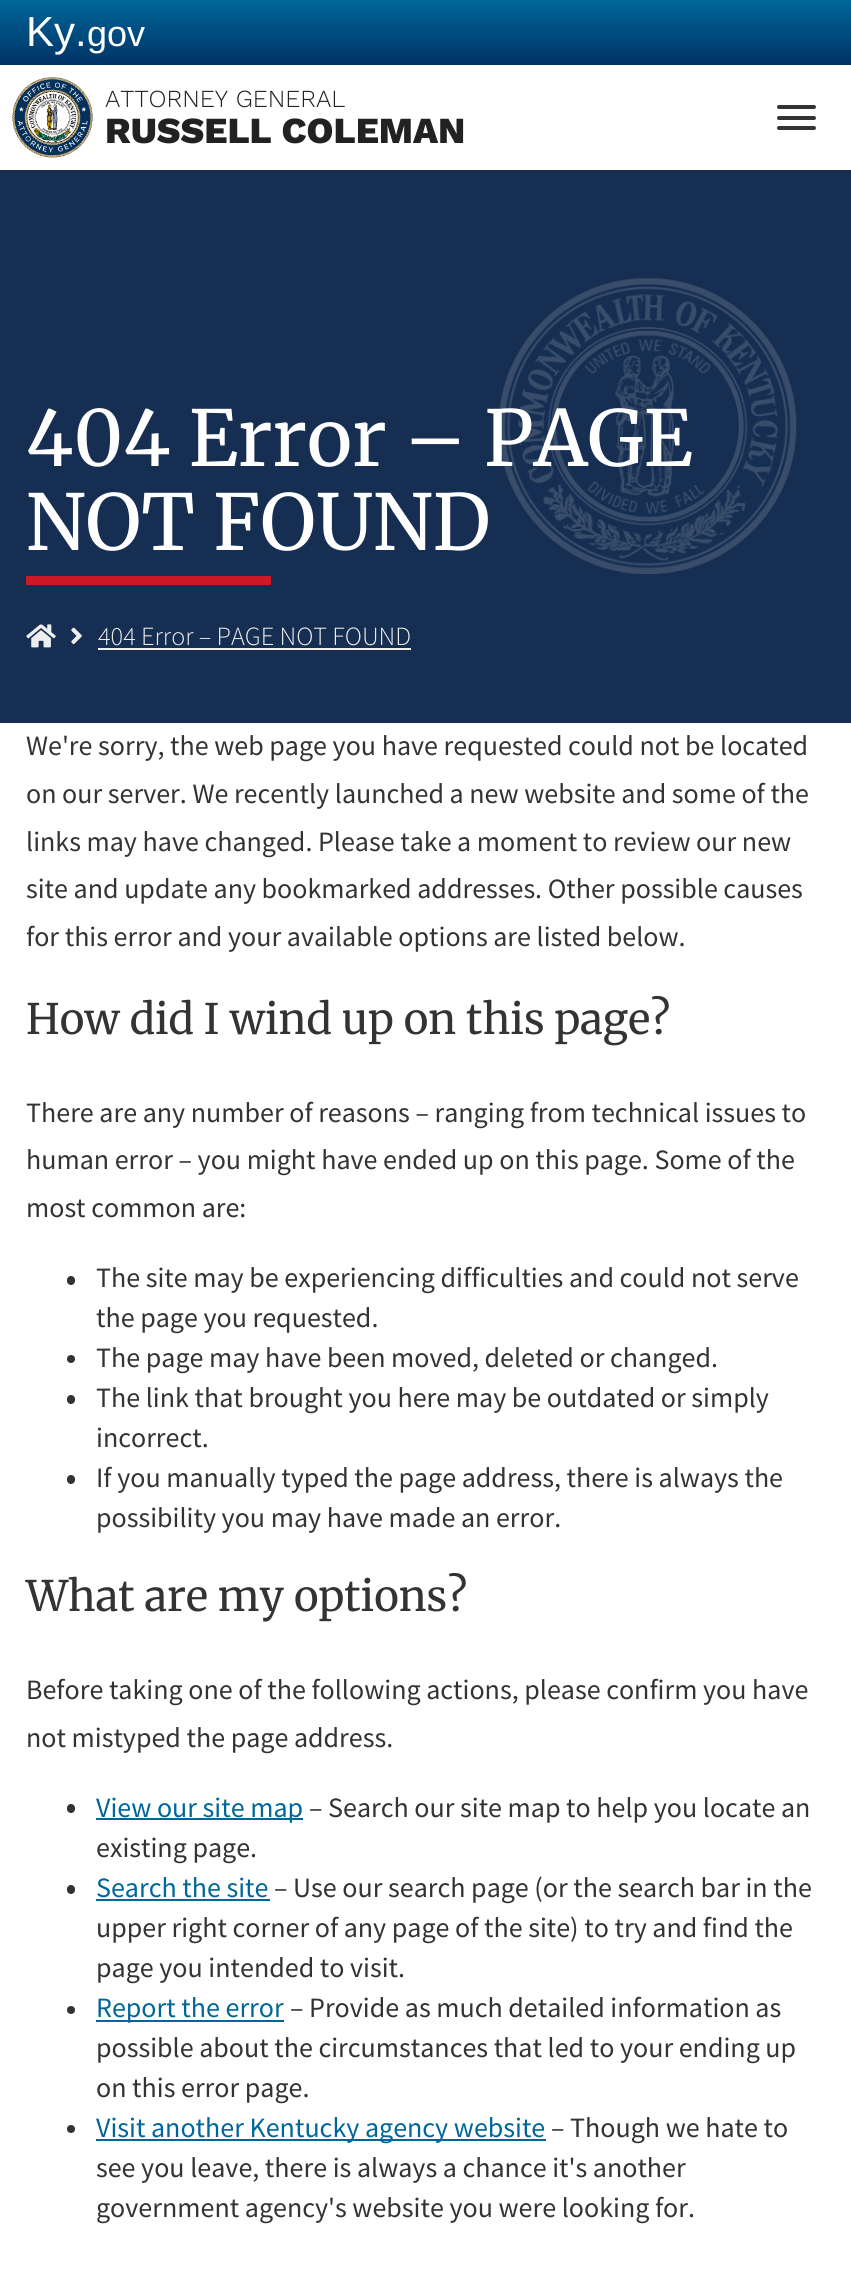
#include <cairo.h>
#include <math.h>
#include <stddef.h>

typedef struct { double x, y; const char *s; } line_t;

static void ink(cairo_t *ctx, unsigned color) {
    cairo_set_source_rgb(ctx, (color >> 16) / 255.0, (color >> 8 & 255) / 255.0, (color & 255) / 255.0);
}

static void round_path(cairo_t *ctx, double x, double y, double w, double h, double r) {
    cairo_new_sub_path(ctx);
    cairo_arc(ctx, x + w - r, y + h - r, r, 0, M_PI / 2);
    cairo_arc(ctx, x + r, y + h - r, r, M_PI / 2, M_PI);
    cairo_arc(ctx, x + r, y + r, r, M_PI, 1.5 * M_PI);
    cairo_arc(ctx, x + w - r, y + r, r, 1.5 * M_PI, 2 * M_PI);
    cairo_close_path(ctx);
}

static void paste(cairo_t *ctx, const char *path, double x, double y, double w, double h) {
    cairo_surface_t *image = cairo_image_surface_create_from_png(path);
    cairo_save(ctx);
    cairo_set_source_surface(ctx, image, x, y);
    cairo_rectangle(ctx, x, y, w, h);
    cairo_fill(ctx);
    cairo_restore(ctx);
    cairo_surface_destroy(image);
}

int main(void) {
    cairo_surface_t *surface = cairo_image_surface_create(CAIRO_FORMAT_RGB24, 851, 2296);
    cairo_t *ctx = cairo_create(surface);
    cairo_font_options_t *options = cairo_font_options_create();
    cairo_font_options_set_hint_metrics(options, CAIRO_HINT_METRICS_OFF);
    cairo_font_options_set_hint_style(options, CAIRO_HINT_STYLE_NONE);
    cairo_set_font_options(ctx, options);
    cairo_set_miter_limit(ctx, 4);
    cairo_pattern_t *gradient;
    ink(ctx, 0xFFFFFF);
    cairo_paint(ctx);
    gradient = cairo_pattern_create_linear(426, 0, 426, 65);
    cairo_pattern_add_color_stop_rgba(gradient, 0, 0, 0.4, 0.6, 1);
    cairo_pattern_add_color_stop_rgba(gradient, 1, 0, 0.2, 0.4, 1);
    cairo_set_source(ctx, gradient);
    cairo_pattern_destroy(gradient);
    cairo_rectangle(ctx, 0, 0, 851, 65);
    cairo_fill(ctx);
    cairo_select_font_face(ctx, "Liberation Sans", CAIRO_FONT_SLANT_NORMAL, CAIRO_FONT_WEIGHT_NORMAL);
    cairo_set_font_size(ctx, 42);
    ink(ctx, 0xFFFFFF);
    cairo_move_to(ctx, 26, 46);
    cairo_show_text(ctx, "Ky.");
    cairo_set_font_size(ctx, 36);
    cairo_move_to(ctx, 87, 46);
    cairo_show_text(ctx, "gov");
    paste(ctx, "media/1.png", 12, 77, 81, 81);
    cairo_select_font_face(ctx, "Work Sans Light", CAIRO_FONT_SLANT_NORMAL, CAIRO_FONT_WEIGHT_NORMAL);
    cairo_set_font_size(ctx, 24.5);
    ink(ctx, 0x222222);
    cairo_move_to(ctx, 105, 107);
    cairo_show_text(ctx, "ATTORNEY GENERAL");
    cairo_select_font_face(ctx, "Work Sans ExtraBold", CAIRO_FONT_SLANT_NORMAL, CAIRO_FONT_WEIGHT_NORMAL);
    cairo_set_font_size(ctx, 36.75);
    cairo_move_to(ctx, 105, 143);
    cairo_show_text(ctx, "RUSSELL COLEMAN");
    ink(ctx, 0x333333);
    round_path(ctx, 777, 105, 39, 4, 2);
    cairo_fill(ctx);
    round_path(ctx, 777, 116, 39, 4, 2);
    cairo_fill(ctx);
    round_path(ctx, 777, 126, 39, 4, 2);
    cairo_fill(ctx);
    ink(ctx, 0x162E51);
    cairo_rectangle(ctx, 0, 170, 851, 553);
    cairo_fill(ctx);
    paste(ctx, "media/2.png", 498, 278, 299, 296);
    cairo_select_font_face(ctx, "Merriweather", CAIRO_FONT_SLANT_NORMAL, CAIRO_FONT_WEIGHT_NORMAL);
    cairo_set_font_size(ctx, 77);
    ink(ctx, 0xFFFFFF);
    cairo_move_to(ctx, 26, 466);
    cairo_show_text(ctx, "404 Error – PAGE");
    cairo_move_to(ctx, 26, 550);
    cairo_show_text(ctx, "NOT FOUND");
    ink(ctx, 0xCD1827);
    cairo_rectangle(ctx, 26, 576, 245, 9);
    cairo_fill(ctx);
    paste(ctx, "media/3.png", 26, 624, 30, 24);
    paste(ctx, "media/4.png", 71, 627, 11, 18);
    cairo_select_font_face(ctx, "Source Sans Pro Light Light", CAIRO_FONT_SLANT_NORMAL, CAIRO_FONT_WEIGHT_NORMAL);
    cairo_set_font_size(ctx, 26.25);
    ink(ctx, 0xEEEEEE);
    cairo_move_to(ctx, 98, 645);
    cairo_show_text(ctx, "404 Error – PAGE NOT FOUND");
    cairo_rectangle(ctx, 98, 648, 313, 2);
    cairo_fill(ctx);
    cairo_select_font_face(ctx, "Source Sans Pro", CAIRO_FONT_SLANT_NORMAL, CAIRO_FONT_WEIGHT_NORMAL);
    cairo_set_font_size(ctx, 28);
    ink(ctx, 0x333333);
    {
        static const line_t items[] = {
            {26, 755, "We're sorry, the web page you have requested could not be located"},
            {26, 803, "on our server. We recently launched a new website and some of the"},
            {26, 851, "links may have changed. Please take a moment to review our new"},
            {26, 898, "site and update any bookmarked addresses. Other possible causes"},
            {26, 946, "for this error and your available options are listed below."},
        };
        for (size_t i = 0; i < sizeof items / sizeof *items; i++) {
            cairo_move_to(ctx, items[i].x, items[i].y);
            cairo_show_text(ctx, items[i].s);
        }
    }
    cairo_select_font_face(ctx, "Merriweather", CAIRO_FONT_SLANT_NORMAL, CAIRO_FONT_WEIGHT_NORMAL);
    cairo_set_font_size(ctx, 42);
    cairo_move_to(ctx, 26, 1034);
    cairo_show_text(ctx, "How did I wind up on this page?");
    cairo_select_font_face(ctx, "Source Sans Pro", CAIRO_FONT_SLANT_NORMAL, CAIRO_FONT_WEIGHT_NORMAL);
    cairo_set_font_size(ctx, 28);
    {
        static const line_t items[] = {
            {26, 1122, "There are any number of reasons – ranging from technical issues to"},
            {26, 1169, "human error – you might have ended up on this page. Some of the"},
            {26, 1217, "most common are:"},
        };
        for (size_t i = 0; i < sizeof items / sizeof *items; i++) {
            cairo_move_to(ctx, items[i].x, items[i].y);
            cairo_show_text(ctx, items[i].s);
        }
    }
    round_path(ctx, 67, 1276, 8, 9, 4);
    cairo_fill(ctx);
    cairo_move_to(ctx, 96, 1287);
    cairo_show_text(ctx, "The site may be experiencing difficulties and could not serve");
    cairo_move_to(ctx, 96, 1327);
    cairo_show_text(ctx, "the page you requested.");
    cairo_new_path(ctx);
    cairo_arc(ctx, 71, 1359, 4, 0, 2 * M_PI);
    cairo_fill(ctx);
    cairo_move_to(ctx, 96, 1367);
    cairo_show_text(ctx, "The page may have been moved, deleted or changed.");
    round_path(ctx, 67, 1395, 8, 9, 4);
    cairo_fill(ctx);
    cairo_move_to(ctx, 96, 1407);
    cairo_show_text(ctx, "The link that brought you here may be outdated or simply");
    cairo_move_to(ctx, 96, 1447);
    cairo_show_text(ctx, "incorrect.");
    round_path(ctx, 67, 1475, 8, 9, 4);
    cairo_fill(ctx);
    cairo_move_to(ctx, 96, 1487);
    cairo_show_text(ctx, "If you manually typed the page address, there is always the");
    cairo_move_to(ctx, 96, 1527);
    cairo_show_text(ctx, "possibility you may have made an error.");
    cairo_select_font_face(ctx, "Merriweather", CAIRO_FONT_SLANT_NORMAL, CAIRO_FONT_WEIGHT_NORMAL);
    cairo_set_font_size(ctx, 42);
    cairo_move_to(ctx, 26, 1611);
    cairo_show_text(ctx, "What are my options?");
    cairo_select_font_face(ctx, "Source Sans Pro", CAIRO_FONT_SLANT_NORMAL, CAIRO_FONT_WEIGHT_NORMAL);
    cairo_set_font_size(ctx, 28);
    cairo_move_to(ctx, 26, 1699);
    cairo_show_text(ctx, "Before taking one of the following actions, please confirm you have");
    cairo_move_to(ctx, 26, 1747);
    cairo_show_text(ctx, "not mistyped the page address.");
    round_path(ctx, 67, 1804, 8, 9, 4);
    cairo_fill(ctx);
    ink(ctx, 0x006699);
    cairo_rectangle(ctx, 96, 1818, 207, 2);
    cairo_fill(ctx);
    cairo_move_to(ctx, 96, 1817);
    cairo_show_text(ctx, "View our site map");
    ink(ctx, 0x333333);
    cairo_move_to(ctx, 309, 1817);
    cairo_show_text(ctx, "– Search our site map to help you locate an");
    cairo_move_to(ctx, 96, 1857);
    cairo_show_text(ctx, "existing page.");
    round_path(ctx, 67, 1885, 8, 9, 4);
    cairo_fill(ctx);
    ink(ctx, 0x006699);
    cairo_move_to(ctx, 96, 1897);
    cairo_show_text(ctx, "Search the site");
    cairo_rectangle(ctx, 96, 1899, 174, 2);
    cairo_fill(ctx);
    ink(ctx, 0x333333);
    {
        static const line_t items[] = {
            {274, 1897, "– Use our search page (or the search bar in the"},
            {96, 1937, "upper right corner of any page of the site) to try and find the"},
            {96, 1977, "page you intended to visit."},
        };
        for (size_t i = 0; i < sizeof items / sizeof *items; i++) {
            cairo_move_to(ctx, items[i].x, items[i].y);
            cairo_show_text(ctx, items[i].s);
        }
    }
    cairo_new_path(ctx);
    cairo_arc(ctx, 71, 2010, 4, 0, 2 * M_PI);
    cairo_fill(ctx);
    ink(ctx, 0x006699);
    cairo_rectangle(ctx, 96, 2020, 188, 2);
    cairo_fill(ctx);
    cairo_move_to(ctx, 96, 2017);
    cairo_show_text(ctx, "Report the error");
    ink(ctx, 0x333333);
    {
        static const line_t items[] = {
            {290, 2017, "– Provide as much detailed information as"},
            {96, 2057, "possible about the circumstances that led to your ending up"},
            {96, 2097, "on this error page."},
        };
        for (size_t i = 0; i < sizeof items / sizeof *items; i++) {
            cairo_move_to(ctx, items[i].x, items[i].y);
            cairo_show_text(ctx, items[i].s);
        }
    }
    cairo_new_path(ctx);
    cairo_arc(ctx, 71, 2129, 4, 0, 2 * M_PI);
    cairo_fill(ctx);
    ink(ctx, 0x006699);
    cairo_rectangle(ctx, 96, 2139, 450, 2);
    cairo_fill(ctx);
    cairo_move_to(ctx, 96, 2137);
    cairo_show_text(ctx, "Visit another Kentucky agency website");
    ink(ctx, 0x333333);
    {
        static const line_t items[] = {
            {551, 2137, "– Though we hate to"},
            {96, 2177, "see you leave, there is always a chance it's another"},
            {96, 2217, "government agency's website you were looking for."},
        };
        for (size_t i = 0; i < sizeof items / sizeof *items; i++) {
            cairo_move_to(ctx, items[i].x, items[i].y);
            cairo_show_text(ctx, items[i].s);
        }
    }
    cairo_surface_write_to_png(surface, "image.png");
    cairo_font_options_destroy(options);
    cairo_destroy(ctx);
    cairo_surface_destroy(surface);
    return 0;
}
